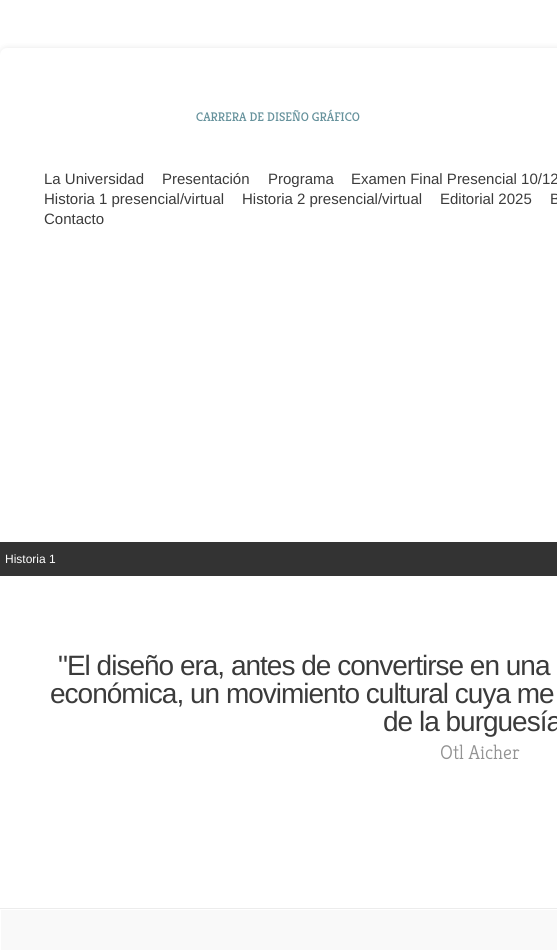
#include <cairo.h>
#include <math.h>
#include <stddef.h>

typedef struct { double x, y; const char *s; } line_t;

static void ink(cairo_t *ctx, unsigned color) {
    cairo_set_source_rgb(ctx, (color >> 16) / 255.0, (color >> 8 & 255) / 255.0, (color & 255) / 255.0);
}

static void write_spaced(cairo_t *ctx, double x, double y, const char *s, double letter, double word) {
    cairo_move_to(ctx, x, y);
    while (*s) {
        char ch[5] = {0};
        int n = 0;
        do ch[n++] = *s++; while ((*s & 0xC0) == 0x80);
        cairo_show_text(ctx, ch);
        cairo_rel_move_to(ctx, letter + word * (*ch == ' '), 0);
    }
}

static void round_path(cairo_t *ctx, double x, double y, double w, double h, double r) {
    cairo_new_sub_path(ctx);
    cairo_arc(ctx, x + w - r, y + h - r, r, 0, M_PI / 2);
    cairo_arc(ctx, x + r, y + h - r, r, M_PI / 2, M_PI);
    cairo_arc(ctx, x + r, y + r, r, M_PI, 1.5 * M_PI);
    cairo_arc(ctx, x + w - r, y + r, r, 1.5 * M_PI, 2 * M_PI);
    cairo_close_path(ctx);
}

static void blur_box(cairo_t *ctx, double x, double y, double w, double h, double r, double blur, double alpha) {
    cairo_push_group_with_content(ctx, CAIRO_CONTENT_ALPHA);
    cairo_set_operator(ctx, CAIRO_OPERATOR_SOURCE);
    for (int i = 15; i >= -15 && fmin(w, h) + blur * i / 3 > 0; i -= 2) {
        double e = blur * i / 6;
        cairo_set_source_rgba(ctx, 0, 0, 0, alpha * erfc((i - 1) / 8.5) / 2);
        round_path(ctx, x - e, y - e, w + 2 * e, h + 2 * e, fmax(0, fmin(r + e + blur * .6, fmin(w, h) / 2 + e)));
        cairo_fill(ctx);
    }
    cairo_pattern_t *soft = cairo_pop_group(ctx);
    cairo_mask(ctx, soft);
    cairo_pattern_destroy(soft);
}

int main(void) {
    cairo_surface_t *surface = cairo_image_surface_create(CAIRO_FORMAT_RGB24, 557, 950);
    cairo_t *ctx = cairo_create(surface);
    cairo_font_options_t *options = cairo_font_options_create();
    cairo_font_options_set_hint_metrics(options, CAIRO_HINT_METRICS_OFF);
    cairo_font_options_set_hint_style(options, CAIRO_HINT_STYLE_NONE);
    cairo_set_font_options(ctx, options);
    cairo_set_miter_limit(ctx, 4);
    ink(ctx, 0xFFFFFF);
    cairo_paint(ctx);
    ink(ctx, 0x000000);
    blur_box(ctx, 0, 48, 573, 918, 7, 3, 0.1);
    ink(ctx, 0xFFFFFF);
    round_path(ctx, 0, 48, 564, 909, 7);
    cairo_fill(ctx);
    cairo_select_font_face(ctx, "Kreon", CAIRO_FONT_SLANT_NORMAL, CAIRO_FONT_WEIGHT_NORMAL);
    cairo_set_font_size(ctx, 12.5);
    ink(ctx, 0x66929C);
    cairo_move_to(ctx, 196, 121);
    cairo_show_text(ctx, "CARRERA DE DISEÑO GRÁFICO");
    cairo_select_font_face(ctx, "Liberation Sans", CAIRO_FONT_SLANT_NORMAL, CAIRO_FONT_WEIGHT_NORMAL);
    cairo_set_font_size(ctx, 15);
    ink(ctx, 0x3B3B3B);
    {
        static const line_t items[] = {
            {44, 184, "La Universidad"},
            {162, 184, "Presentación"},
            {268, 184, "Programa"},
            {351, 184, "Examen Final Presencial 10/12"},
            {44, 204, "Historia 1 presencial/virtual"},
            {242, 204, "Historia 2 presencial/virtual"},
            {440, 204, "Editorial 2025"},
            {550, 204, "B"},
            {44, 224, "Contacto"},
        };
        for (size_t i = 0; i < sizeof items / sizeof *items; i++) {
            cairo_move_to(ctx, items[i].x, items[i].y);
            cairo_show_text(ctx, items[i].s);
        }
    }
    ink(ctx, 0x333333);
    cairo_rectangle(ctx, 0, 542, 557, 34);
    cairo_fill(ctx);
    cairo_set_font_size(ctx, 12);
    ink(ctx, 0xFFFFFF);
    cairo_move_to(ctx, 5, 563);
    cairo_show_text(ctx, "Historia 1");
    cairo_set_font_size(ctx, 28);
    ink(ctx, 0x3B3B3B);
    {
        static const line_t items[] = {
            {58, 675, "\"El diseño era, antes de convertirse en una"},
            {50, 703, "económica, un movimiento cultural cuya me"},
            {383, 731, "de la burguesía"},
        };
        for (size_t i = 0; i < sizeof items / sizeof *items; i++) {
            write_spaced(ctx, items[i].x, items[i].y, items[i].s, -1, 0);
        }
    }
    cairo_select_font_face(ctx, "Kreon Light", CAIRO_FONT_SLANT_NORMAL, CAIRO_FONT_WEIGHT_NORMAL);
    cairo_set_font_size(ctx, 20);
    ink(ctx, 0x929292);
    cairo_move_to(ctx, 440, 759);
    cairo_show_text(ctx, "Otl Aicher");
    ink(ctx, 0xECECEC);
    cairo_rectangle(ctx, 0, 908, 557, 1);
    cairo_fill(ctx);
    ink(ctx, 0xF9F9F9);
    cairo_rectangle(ctx, 1, 910, 556, 40);
    cairo_fill(ctx);
    cairo_surface_write_to_png(surface, "image.png");
    cairo_font_options_destroy(options);
    cairo_destroy(ctx);
    cairo_surface_destroy(surface);
    return 0;
}
